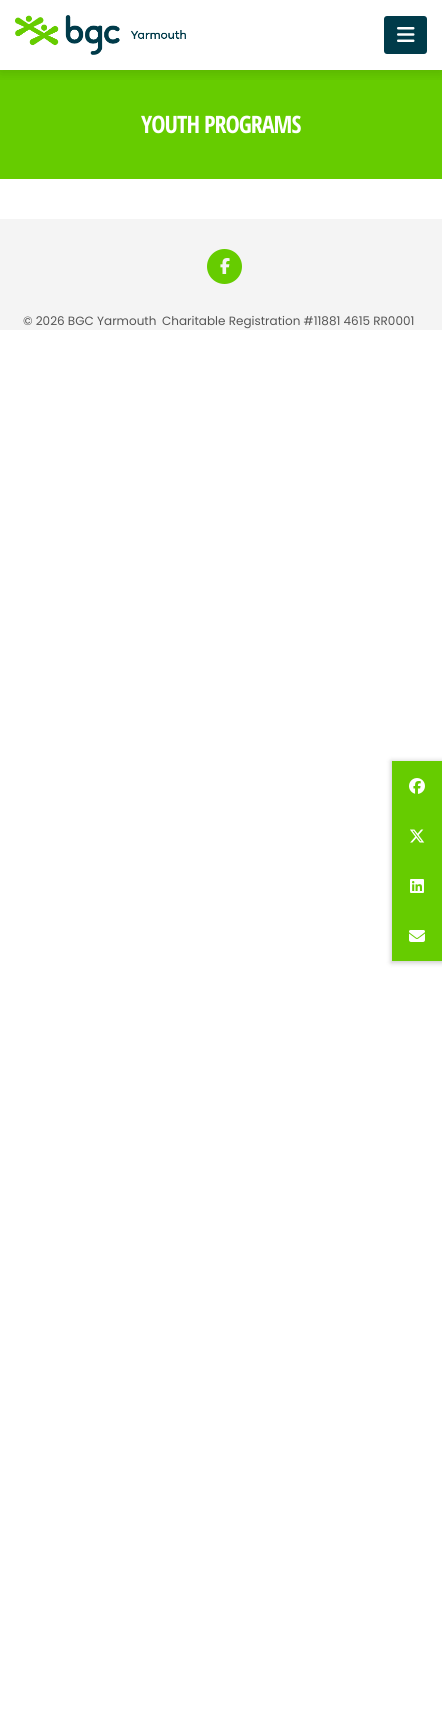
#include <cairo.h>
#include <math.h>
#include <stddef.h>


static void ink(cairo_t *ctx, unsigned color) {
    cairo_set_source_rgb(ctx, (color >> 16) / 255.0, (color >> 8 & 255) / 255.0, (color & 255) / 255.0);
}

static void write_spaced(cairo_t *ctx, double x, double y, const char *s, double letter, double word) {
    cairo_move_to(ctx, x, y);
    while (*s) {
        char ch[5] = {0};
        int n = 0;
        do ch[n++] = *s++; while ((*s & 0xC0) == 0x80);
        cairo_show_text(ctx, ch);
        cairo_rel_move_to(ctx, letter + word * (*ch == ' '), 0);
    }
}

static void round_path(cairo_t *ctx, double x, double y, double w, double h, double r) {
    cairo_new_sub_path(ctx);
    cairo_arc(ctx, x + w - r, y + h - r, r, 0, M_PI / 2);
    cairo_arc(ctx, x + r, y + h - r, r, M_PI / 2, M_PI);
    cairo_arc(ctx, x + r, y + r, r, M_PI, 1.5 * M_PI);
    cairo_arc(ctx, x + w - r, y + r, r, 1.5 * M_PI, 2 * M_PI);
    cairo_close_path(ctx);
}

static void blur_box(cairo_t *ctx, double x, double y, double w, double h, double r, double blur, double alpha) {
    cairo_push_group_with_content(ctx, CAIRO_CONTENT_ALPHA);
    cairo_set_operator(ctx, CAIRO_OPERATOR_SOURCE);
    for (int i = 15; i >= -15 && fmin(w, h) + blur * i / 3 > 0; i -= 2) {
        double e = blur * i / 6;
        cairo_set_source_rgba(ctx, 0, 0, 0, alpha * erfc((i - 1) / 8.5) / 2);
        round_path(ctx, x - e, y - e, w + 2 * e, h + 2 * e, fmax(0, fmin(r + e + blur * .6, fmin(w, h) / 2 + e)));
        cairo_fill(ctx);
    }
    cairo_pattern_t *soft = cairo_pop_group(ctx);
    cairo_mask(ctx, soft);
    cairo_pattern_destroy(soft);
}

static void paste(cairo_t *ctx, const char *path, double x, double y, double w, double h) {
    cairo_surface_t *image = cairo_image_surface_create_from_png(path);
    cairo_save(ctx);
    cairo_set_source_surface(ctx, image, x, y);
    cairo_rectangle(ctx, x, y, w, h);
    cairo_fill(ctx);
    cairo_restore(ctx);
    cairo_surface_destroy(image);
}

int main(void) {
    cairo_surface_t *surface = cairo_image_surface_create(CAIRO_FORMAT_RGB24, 442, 1721);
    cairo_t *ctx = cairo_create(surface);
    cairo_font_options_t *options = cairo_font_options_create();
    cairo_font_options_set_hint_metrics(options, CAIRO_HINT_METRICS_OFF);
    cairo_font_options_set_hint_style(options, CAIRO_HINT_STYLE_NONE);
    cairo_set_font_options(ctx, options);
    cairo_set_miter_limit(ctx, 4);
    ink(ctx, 0xFFFFFF);
    cairo_paint(ctx);
    ink(ctx, 0x66CC00);
    cairo_rectangle(ctx, 0, 70, 442, 109);
    cairo_fill(ctx);
    cairo_save(ctx);
    cairo_rectangle(ctx, 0, 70, 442, 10);
    cairo_clip(ctx);
    ink(ctx, 0x000000);
    blur_box(ctx, 0, 2, 442, 70, 0, 7.5, 0.15);
    cairo_restore(ctx);
    paste(ctx, "media/1.png", 15, 15, 171, 40);
    ink(ctx, 0x003B4A);
    round_path(ctx, 384, 16, 43, 38, 3);
    cairo_fill(ctx);
    paste(ctx, "media/2.png", 397, 27, 18, 15);
    cairo_select_font_face(ctx, "Open Sans Condensed", CAIRO_FONT_SLANT_NORMAL, CAIRO_FONT_WEIGHT_BOLD);
    cairo_set_font_size(ctx, 24);
    ink(ctx, 0xFFFFFF);
    write_spaced(ctx, 141, 133, "YOUTH PROGRAMS", -1, 0);
    ink(ctx, 0xF4F4F4);
    cairo_rectangle(ctx, 0, 219, 442, 111);
    cairo_fill(ctx);
    ink(ctx, 0x66CC00);
    cairo_arc(ctx, 224.5, 266.5, 17.5, 0, 2 * M_PI);
    cairo_fill(ctx);
    paste(ctx, "media/3.png", 220, 258, 10, 16);
    cairo_select_font_face(ctx, "Poppins", CAIRO_FONT_SLANT_NORMAL, CAIRO_FONT_WEIGHT_NORMAL);
    cairo_set_font_size(ctx, 12);
    ink(ctx, 0x555555);
    cairo_move_to(ctx, 23, 325);
    cairo_show_text(ctx, "© 2026 BGC Yarmouth");
    cairo_move_to(ctx, 162, 325);
    cairo_show_text(ctx, "Charitable Registration #11881 4615 RR0001");
    ink(ctx, 0x000000);
    blur_box(ctx, 391, 761, 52, 202, 0, 2.5, 0.2);
    ink(ctx, 0x66CC00);
    cairo_rectangle(ctx, 392, 761, 50, 200);
    cairo_fill(ctx);
    paste(ctx, "media/4.png", 409, 778, 16, 16);
    paste(ctx, "media/5.png", 410, 829, 15, 14);
    paste(ctx, "media/6.png", 410, 879, 14, 14);
    paste(ctx, "media/7.png", 409, 930, 16, 12);
    cairo_surface_write_to_png(surface, "image.png");
    cairo_font_options_destroy(options);
    cairo_destroy(ctx);
    cairo_surface_destroy(surface);
    return 0;
}
